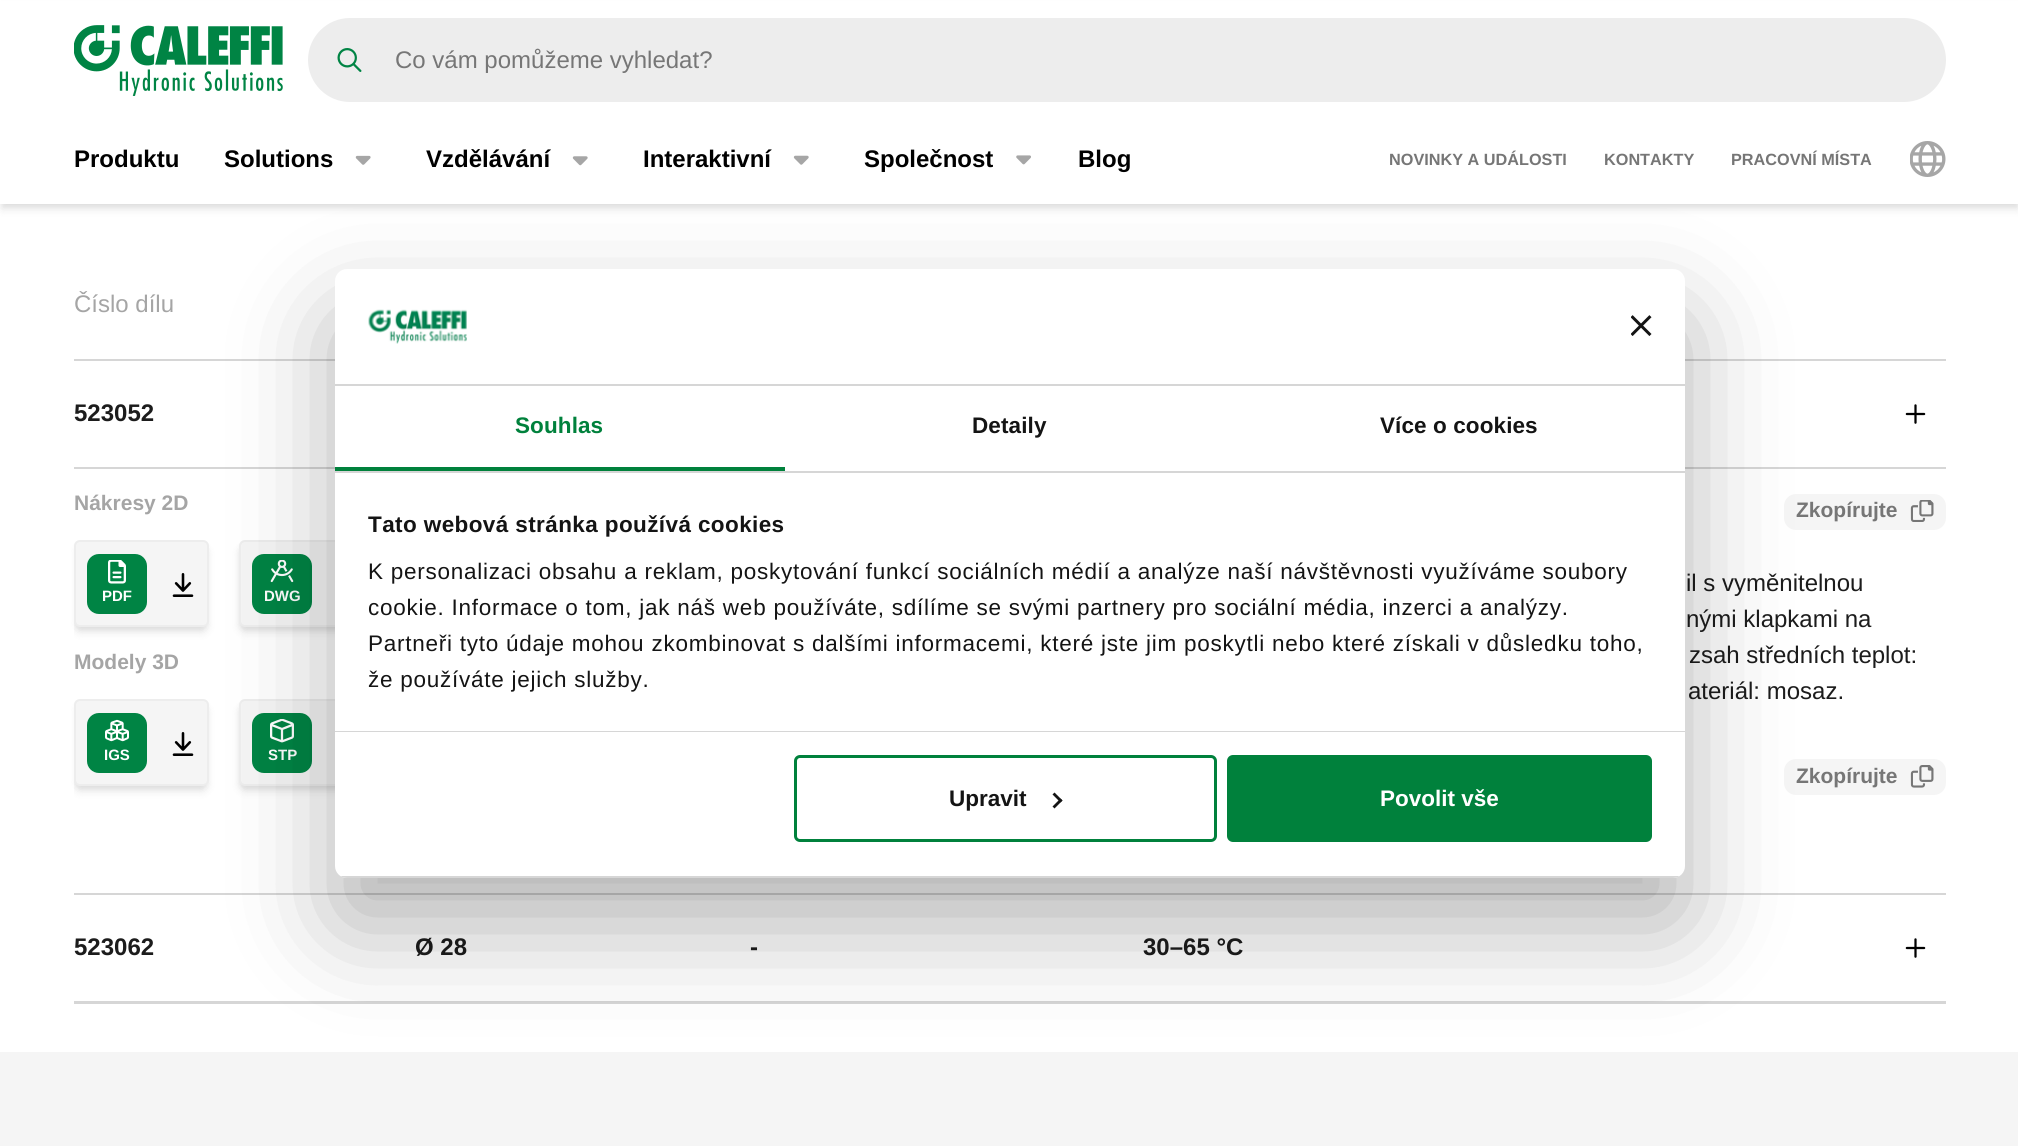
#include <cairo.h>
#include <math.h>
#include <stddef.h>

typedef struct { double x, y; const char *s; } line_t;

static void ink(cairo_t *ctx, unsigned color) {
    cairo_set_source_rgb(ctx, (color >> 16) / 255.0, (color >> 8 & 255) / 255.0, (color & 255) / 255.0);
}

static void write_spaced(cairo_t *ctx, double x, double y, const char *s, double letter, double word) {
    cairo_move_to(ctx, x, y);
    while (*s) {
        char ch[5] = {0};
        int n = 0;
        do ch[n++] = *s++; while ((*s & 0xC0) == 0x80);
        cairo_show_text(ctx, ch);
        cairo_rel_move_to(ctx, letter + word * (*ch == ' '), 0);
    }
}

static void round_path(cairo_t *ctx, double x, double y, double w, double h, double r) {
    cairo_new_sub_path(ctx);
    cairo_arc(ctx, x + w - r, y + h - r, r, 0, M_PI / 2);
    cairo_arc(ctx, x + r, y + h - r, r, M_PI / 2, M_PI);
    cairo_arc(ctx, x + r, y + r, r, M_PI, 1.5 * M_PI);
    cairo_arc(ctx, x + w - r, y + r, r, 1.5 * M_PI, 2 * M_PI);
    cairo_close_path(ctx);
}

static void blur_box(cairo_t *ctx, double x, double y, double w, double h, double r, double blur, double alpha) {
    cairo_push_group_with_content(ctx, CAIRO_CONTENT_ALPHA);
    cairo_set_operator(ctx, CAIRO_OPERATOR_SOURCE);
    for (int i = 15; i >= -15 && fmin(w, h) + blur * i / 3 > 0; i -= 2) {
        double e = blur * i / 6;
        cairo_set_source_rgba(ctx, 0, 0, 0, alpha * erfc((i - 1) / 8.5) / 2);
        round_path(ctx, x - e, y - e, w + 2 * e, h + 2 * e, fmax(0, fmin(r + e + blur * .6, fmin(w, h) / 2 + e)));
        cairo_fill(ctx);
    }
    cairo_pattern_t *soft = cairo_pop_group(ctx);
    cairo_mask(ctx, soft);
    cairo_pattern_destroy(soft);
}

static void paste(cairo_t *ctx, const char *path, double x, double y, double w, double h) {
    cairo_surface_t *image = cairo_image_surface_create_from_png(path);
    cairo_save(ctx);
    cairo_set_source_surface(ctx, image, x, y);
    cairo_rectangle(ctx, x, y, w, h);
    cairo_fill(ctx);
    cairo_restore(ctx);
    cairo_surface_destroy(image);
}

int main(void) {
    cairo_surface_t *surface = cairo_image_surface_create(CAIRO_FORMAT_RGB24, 2018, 1146);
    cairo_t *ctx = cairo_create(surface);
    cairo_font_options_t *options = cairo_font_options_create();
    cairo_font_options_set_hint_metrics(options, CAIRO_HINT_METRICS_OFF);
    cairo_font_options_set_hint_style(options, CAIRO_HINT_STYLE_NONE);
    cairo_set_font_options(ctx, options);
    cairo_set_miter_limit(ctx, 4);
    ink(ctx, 0xFFFFFF);
    cairo_paint(ctx);
    ink(ctx, 0x000000);
    blur_box(ctx, 2, 8, 2016, 201, 0, 4.5, 0.1);
    blur_box(ctx, 2, 5, 2016, 201, 0, 3, 0.06);
    ink(ctx, 0xFFFFFF);
    cairo_rectangle(ctx, 0, 1, 2018, 203);
    cairo_fill(ctx);
    paste(ctx, "media/1.png", 74, 25, 209, 71);
    ink(ctx, 0xEDEDED);
    round_path(ctx, 309.5, 19.5, 1635, 81, 40.5);
    cairo_fill_preserve(ctx);
    cairo_set_line_width(ctx, 3);
    cairo_stroke(ctx);
    paste(ctx, "media/2.png", 337, 48, 25, 24);
    cairo_select_font_face(ctx, "Liberation Sans", CAIRO_FONT_SLANT_NORMAL, CAIRO_FONT_WEIGHT_NORMAL);
    cairo_set_font_size(ctx, 24);
    ink(ctx, 0x767676);
    cairo_move_to(ctx, 395, 68);
    cairo_show_text(ctx, "Co vám pomůžeme vyhledat?");
    cairo_select_font_face(ctx, "Liberation Sans", CAIRO_FONT_SLANT_NORMAL, CAIRO_FONT_WEIGHT_BOLD);
    ink(ctx, 0x000000);
    cairo_move_to(ctx, 74, 167);
    cairo_show_text(ctx, "Produktu");
    cairo_move_to(ctx, 224, 167);
    cairo_show_text(ctx, "Solutions");
    paste(ctx, "media/3.png", 355, 155, 16, 10);
    cairo_move_to(ctx, 426, 167);
    cairo_show_text(ctx, "Vzdělávání");
    paste(ctx, "media/4.png", 572, 156, 16, 10);
    cairo_move_to(ctx, 643, 167);
    cairo_show_text(ctx, "Interaktivní");
    paste(ctx, "media/5.png", 793, 155, 16, 10);
    cairo_move_to(ctx, 864, 167);
    cairo_show_text(ctx, "Společnost");
    paste(ctx, "media/6.png", 1016, 155, 15, 10);
    cairo_move_to(ctx, 1078, 167);
    cairo_show_text(ctx, "Blog");
    cairo_set_font_size(ctx, 16.25);
    ink(ctx, 0x767676);
    {
        static const line_t items[] = {
            {1389, 165, "NOVINKY A UDÁLOSTI"},
            {1604, 165, "KONTAKTY"},
            {1731, 165, "PRACOVNÍ MÍSTA"},
        };
        for (size_t i = 0; i < sizeof items / sizeof *items; i++) {
            cairo_move_to(ctx, items[i].x, items[i].y);
            cairo_show_text(ctx, items[i].s);
        }
    }
    paste(ctx, "media/7.png", 1910, 141, 36, 36);
    ink(ctx, 0xD6D6D6);
    cairo_rectangle(ctx, 74, 359, 261, 2);
    cairo_fill(ctx);
    cairo_select_font_face(ctx, "Liberation Sans", CAIRO_FONT_SLANT_NORMAL, CAIRO_FONT_WEIGHT_NORMAL);
    cairo_set_font_size(ctx, 24);
    ink(ctx, 0xA5A5A5);
    cairo_move_to(ctx, 74, 312);
    cairo_show_text(ctx, "Číslo dílu");
    ink(ctx, 0xD6D6D6);
    cairo_rectangle(ctx, 1685, 359, 261, 2);
    cairo_fill(ctx);
    cairo_rectangle(ctx, 74, 467, 261, 2);
    cairo_fill(ctx);
    cairo_select_font_face(ctx, "Liberation Sans", CAIRO_FONT_SLANT_NORMAL, CAIRO_FONT_WEIGHT_BOLD);
    ink(ctx, 0x1C1C1C);
    cairo_move_to(ctx, 74, 421);
    cairo_show_text(ctx, "523052");
    paste(ctx, "media/8.png", 1905, 404, 21, 20);
    ink(ctx, 0xD6D6D6);
    cairo_rectangle(ctx, 1685, 467, 261, 2);
    cairo_fill(ctx);
    cairo_rectangle(ctx, 74, 893, 1872, 2);
    cairo_fill(ctx);
    cairo_set_font_size(ctx, 21);
    ink(ctx, 0xA5A5A5);
    cairo_move_to(ctx, 74, 510);
    cairo_show_text(ctx, "Nákresy 2D");
    cairo_save(ctx);
    cairo_rectangle(ctx, 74, 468, 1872, 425);
    cairo_clip(ctx);
    ink(ctx, 0x000000);
    blur_box(ctx, 75, 548, 132, 84, 5, 4.5, 0.1);
    cairo_restore(ctx);
    ink(ctx, 0x000000);
    blur_box(ctx, 75, 545, 132, 84, 5, 3, 0.06);
    ink(ctx, 0xF5F5F5);
    round_path(ctx, 75, 541, 133, 85, 5);
    cairo_fill_preserve(ctx);
    ink(ctx, 0xEDEDED);
    cairo_set_line_width(ctx, 2);
    cairo_stroke(ctx);
    ink(ctx, 0x008444);
    round_path(ctx, 87, 554, 60, 60, 12);
    cairo_fill(ctx);
    paste(ctx, "media/9.png", 108, 560, 18, 24);
    cairo_set_font_size(ctx, 15);
    ink(ctx, 0xFFFFFF);
    cairo_move_to(ctx, 102, 601);
    cairo_show_text(ctx, "PDF");
    paste(ctx, "media/10.png", 172, 573, 22, 24);
    ink(ctx, 0x000000);
    blur_box(ctx, 240, 548, 132, 84, 5, 4.5, 0.1);
    blur_box(ctx, 240, 545, 132, 84, 5, 3, 0.06);
    ink(ctx, 0xF5F5F5);
    round_path(ctx, 240, 541, 133, 85, 5);
    cairo_fill_preserve(ctx);
    ink(ctx, 0xEDEDED);
    cairo_stroke(ctx);
    ink(ctx, 0x008444);
    round_path(ctx, 252, 554, 60, 60, 12);
    cairo_fill(ctx);
    paste(ctx, "media/11.png", 270, 560, 24, 23);
    ink(ctx, 0xFFFFFF);
    cairo_move_to(ctx, 264, 601);
    cairo_show_text(ctx, "DWG");
    cairo_set_font_size(ctx, 21);
    ink(ctx, 0xA5A5A5);
    cairo_move_to(ctx, 74, 669);
    cairo_show_text(ctx, "Modely 3D");
    cairo_save(ctx);
    cairo_rectangle(ctx, 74, 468, 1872, 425);
    cairo_clip(ctx);
    ink(ctx, 0x000000);
    blur_box(ctx, 75, 707, 132, 84, 5, 4.5, 0.1);
    cairo_restore(ctx);
    ink(ctx, 0x000000);
    blur_box(ctx, 75, 704, 132, 84, 5, 3, 0.06);
    ink(ctx, 0xF5F5F5);
    round_path(ctx, 75, 700, 133, 85, 5);
    cairo_fill_preserve(ctx);
    ink(ctx, 0xEDEDED);
    cairo_stroke(ctx);
    ink(ctx, 0x008444);
    round_path(ctx, 87, 713, 60, 60, 12);
    cairo_fill(ctx);
    paste(ctx, "media/12.png", 105, 719, 24, 23);
    cairo_set_font_size(ctx, 15);
    ink(ctx, 0xFFFFFF);
    cairo_move_to(ctx, 104, 760);
    cairo_show_text(ctx, "IGS");
    paste(ctx, "media/10.png", 172, 732, 22, 24);
    ink(ctx, 0x000000);
    blur_box(ctx, 240, 707, 132, 84, 5, 4.5, 0.1);
    blur_box(ctx, 240, 704, 132, 84, 5, 3, 0.06);
    ink(ctx, 0xF5F5F5);
    round_path(ctx, 240, 700, 133, 85, 5);
    cairo_fill_preserve(ctx);
    ink(ctx, 0xEDEDED);
    cairo_stroke(ctx);
    ink(ctx, 0x008444);
    round_path(ctx, 252, 713, 60, 60, 12);
    cairo_fill(ctx);
    paste(ctx, "media/13.png", 270, 719, 24, 24);
    ink(ctx, 0xFFFFFF);
    cairo_move_to(ctx, 268, 760);
    cairo_show_text(ctx, "STP");
    ink(ctx, 0xF5F5F5);
    round_path(ctx, 1784, 494, 162, 36, 12);
    cairo_fill(ctx);
    cairo_set_font_size(ctx, 21);
    ink(ctx, 0x767676);
    cairo_move_to(ctx, 1796, 517);
    cairo_show_text(ctx, "Zkopírujte");
    paste(ctx, "media/14.png", 1910, 500, 24, 22);
    cairo_select_font_face(ctx, "Liberation Sans", CAIRO_FONT_SLANT_NORMAL, CAIRO_FONT_WEIGHT_NORMAL);
    cairo_set_font_size(ctx, 24);
    ink(ctx, 0x1C1C1C);
    {
        static const line_t items[] = {
            {1686, 591, "il s vyměnitelnou"},
            {1686, 627, "nými klapkami na"},
            {1689, 663, "zsah středních teplot:"},
            {1688, 699, "ateriál: mosaz."},
        };
        for (size_t i = 0; i < sizeof items / sizeof *items; i++) {
            cairo_move_to(ctx, items[i].x, items[i].y);
            cairo_show_text(ctx, items[i].s);
        }
    }
    ink(ctx, 0xF5F5F5);
    round_path(ctx, 1784, 759, 162, 36, 12);
    cairo_fill(ctx);
    cairo_select_font_face(ctx, "Liberation Sans", CAIRO_FONT_SLANT_NORMAL, CAIRO_FONT_WEIGHT_BOLD);
    cairo_set_font_size(ctx, 21);
    ink(ctx, 0x767676);
    cairo_move_to(ctx, 1796, 783);
    cairo_show_text(ctx, "Zkopírujte");
    paste(ctx, "media/15.png", 1910, 765, 24, 23);
    cairo_set_font_size(ctx, 24);
    ink(ctx, 0x1C1C1C);
    {
        static const line_t items[] = {
            {74, 955, "523062"},
            {415, 955, "Ø 28"},
            {750, 955, "-"},
        };
        for (size_t i = 0; i < sizeof items / sizeof *items; i++) {
            cairo_move_to(ctx, items[i].x, items[i].y);
            cairo_show_text(ctx, items[i].s);
        }
    }
    ink(ctx, 0xD6D6D6);
    cairo_rectangle(ctx, 74, 1001, 342, 2);
    cairo_fill(ctx);
    cairo_rectangle(ctx, 414, 1001, 1532, 2);
    cairo_fill(ctx);
    ink(ctx, 0x1C1C1C);
    cairo_move_to(ctx, 1143, 955);
    cairo_show_text(ctx, "30–65 °C");
    paste(ctx, "media/8.png", 1905, 938, 21, 20);
    ink(ctx, 0xD6D6D6);
    cairo_rectangle(ctx, 74, 1003, 1872, 1);
    cairo_fill(ctx);
    ink(ctx, 0xF5F5F5);
    cairo_rectangle(ctx, 0, 1052, 2018, 94);
    cairo_fill(ctx);
    ink(ctx, 0x000000);
    blur_box(ctx, 335, 317, 1350, 609, 12, 51, 0.3);
    ink(ctx, 0xFFFFFF);
    round_path(ctx, 335, 269, 1350, 609, 12);
    cairo_fill(ctx);
    ink(ctx, 0xD6D6D6);
    cairo_rectangle(ctx, 335, 384, 1350, 2);
    cairo_fill(ctx);
    paste(ctx, "media/16.png", 368, 309, 99, 35);
    paste(ctx, "media/17.png", 1631, 315, 21, 21);
    cairo_rectangle(ctx, 335, 471, 1350, 2);
    cairo_fill(ctx);
    ink(ctx, 0x00813C);
    cairo_rectangle(ctx, 335, 467, 450, 4);
    cairo_fill(ctx);
    cairo_set_font_size(ctx, 22.5);
    write_spaced(ctx, 515, 433, "Souhlas", 0.1, 0);
    ink(ctx, 0x141414);
    write_spaced(ctx, 972, 433, "Detaily", 0.1, 0);
    write_spaced(ctx, 1380, 433, "Více o cookies", 0.1, 0);
    ink(ctx, 0xD6D6D6);
    cairo_rectangle(ctx, 335, 731, 1350, 1);
    cairo_fill(ctx);
    ink(ctx, 0x141414);
    write_spaced(ctx, 368, 532, "Tato webová stránka používá cookies", 0.4, 0);
    cairo_select_font_face(ctx, "Liberation Sans", CAIRO_FONT_SLANT_NORMAL, CAIRO_FONT_WEIGHT_NORMAL);
    {
        static const line_t items[] = {
            {368, 579, "K personalizaci obsahu a reklam, poskytování funkcí sociálních médií a analýze naší návštěvnosti využíváme soubory"},
            {368, 615, "cookie. Informace o tom, jak náš web používáte, sdílíme se svými partnery pro sociální média, inzerci a analýzy."},
            {368, 651, "Partneři tyto údaje mohou zkombinovat s dalšími informacemi, které jste jim poskytli nebo které získali v důsledku toho,"},
            {368, 687, "že používáte jejich služby."},
        };
        for (size_t i = 0; i < sizeof items / sizeof *items; i++) {
            write_spaced(ctx, items[i].x, items[i].y, items[i].s, 0.75, 0);
        }
    }
    cairo_save(ctx);
    round_path(ctx, 335, 269, 1350, 609, 12);
    cairo_clip(ctx);
    ink(ctx, 0xD6D6D6);
    cairo_rectangle(ctx, 335, 876, 1350, 2);
    cairo_fill(ctx);
    cairo_restore(ctx);
    round_path(ctx, 795.5, 756.5, 420, 84, 4.5);
    ink(ctx, 0x00813C);
    cairo_set_line_width(ctx, 3);
    cairo_stroke(ctx);
    cairo_select_font_face(ctx, "Liberation Sans", CAIRO_FONT_SLANT_NORMAL, CAIRO_FONT_WEIGHT_BOLD);
    ink(ctx, 0x141414);
    cairo_move_to(ctx, 949, 806);
    cairo_show_text(ctx, "Upravit");
    cairo_new_path(ctx);
    cairo_move_to(ctx, 1054.5, 792.5);
    cairo_line_to(ctx, 1062.5, 800.5);
    cairo_line_to(ctx, 1060.5, 802.5);
    cairo_line_to(ctx, 1052.5, 794.5);
    cairo_close_path(ctx);
    cairo_fill(ctx);
    cairo_new_path(ctx);
    cairo_move_to(ctx, 1060.5, 798.5);
    cairo_line_to(ctx, 1062.5, 800.5);
    cairo_line_to(ctx, 1054.5, 808.5);
    cairo_line_to(ctx, 1052.5, 806.5);
    cairo_close_path(ctx);
    cairo_fill(ctx);
    ink(ctx, 0x00813C);
    round_path(ctx, 1228.5, 756.5, 422, 84, 4.5);
    cairo_fill_preserve(ctx);
    cairo_stroke(ctx);
    ink(ctx, 0xFFFFFF);
    cairo_move_to(ctx, 1380, 806);
    cairo_show_text(ctx, "Povolit vše");
    cairo_surface_write_to_png(surface, "image.png");
    cairo_font_options_destroy(options);
    cairo_destroy(ctx);
    cairo_surface_destroy(surface);
    return 0;
}
